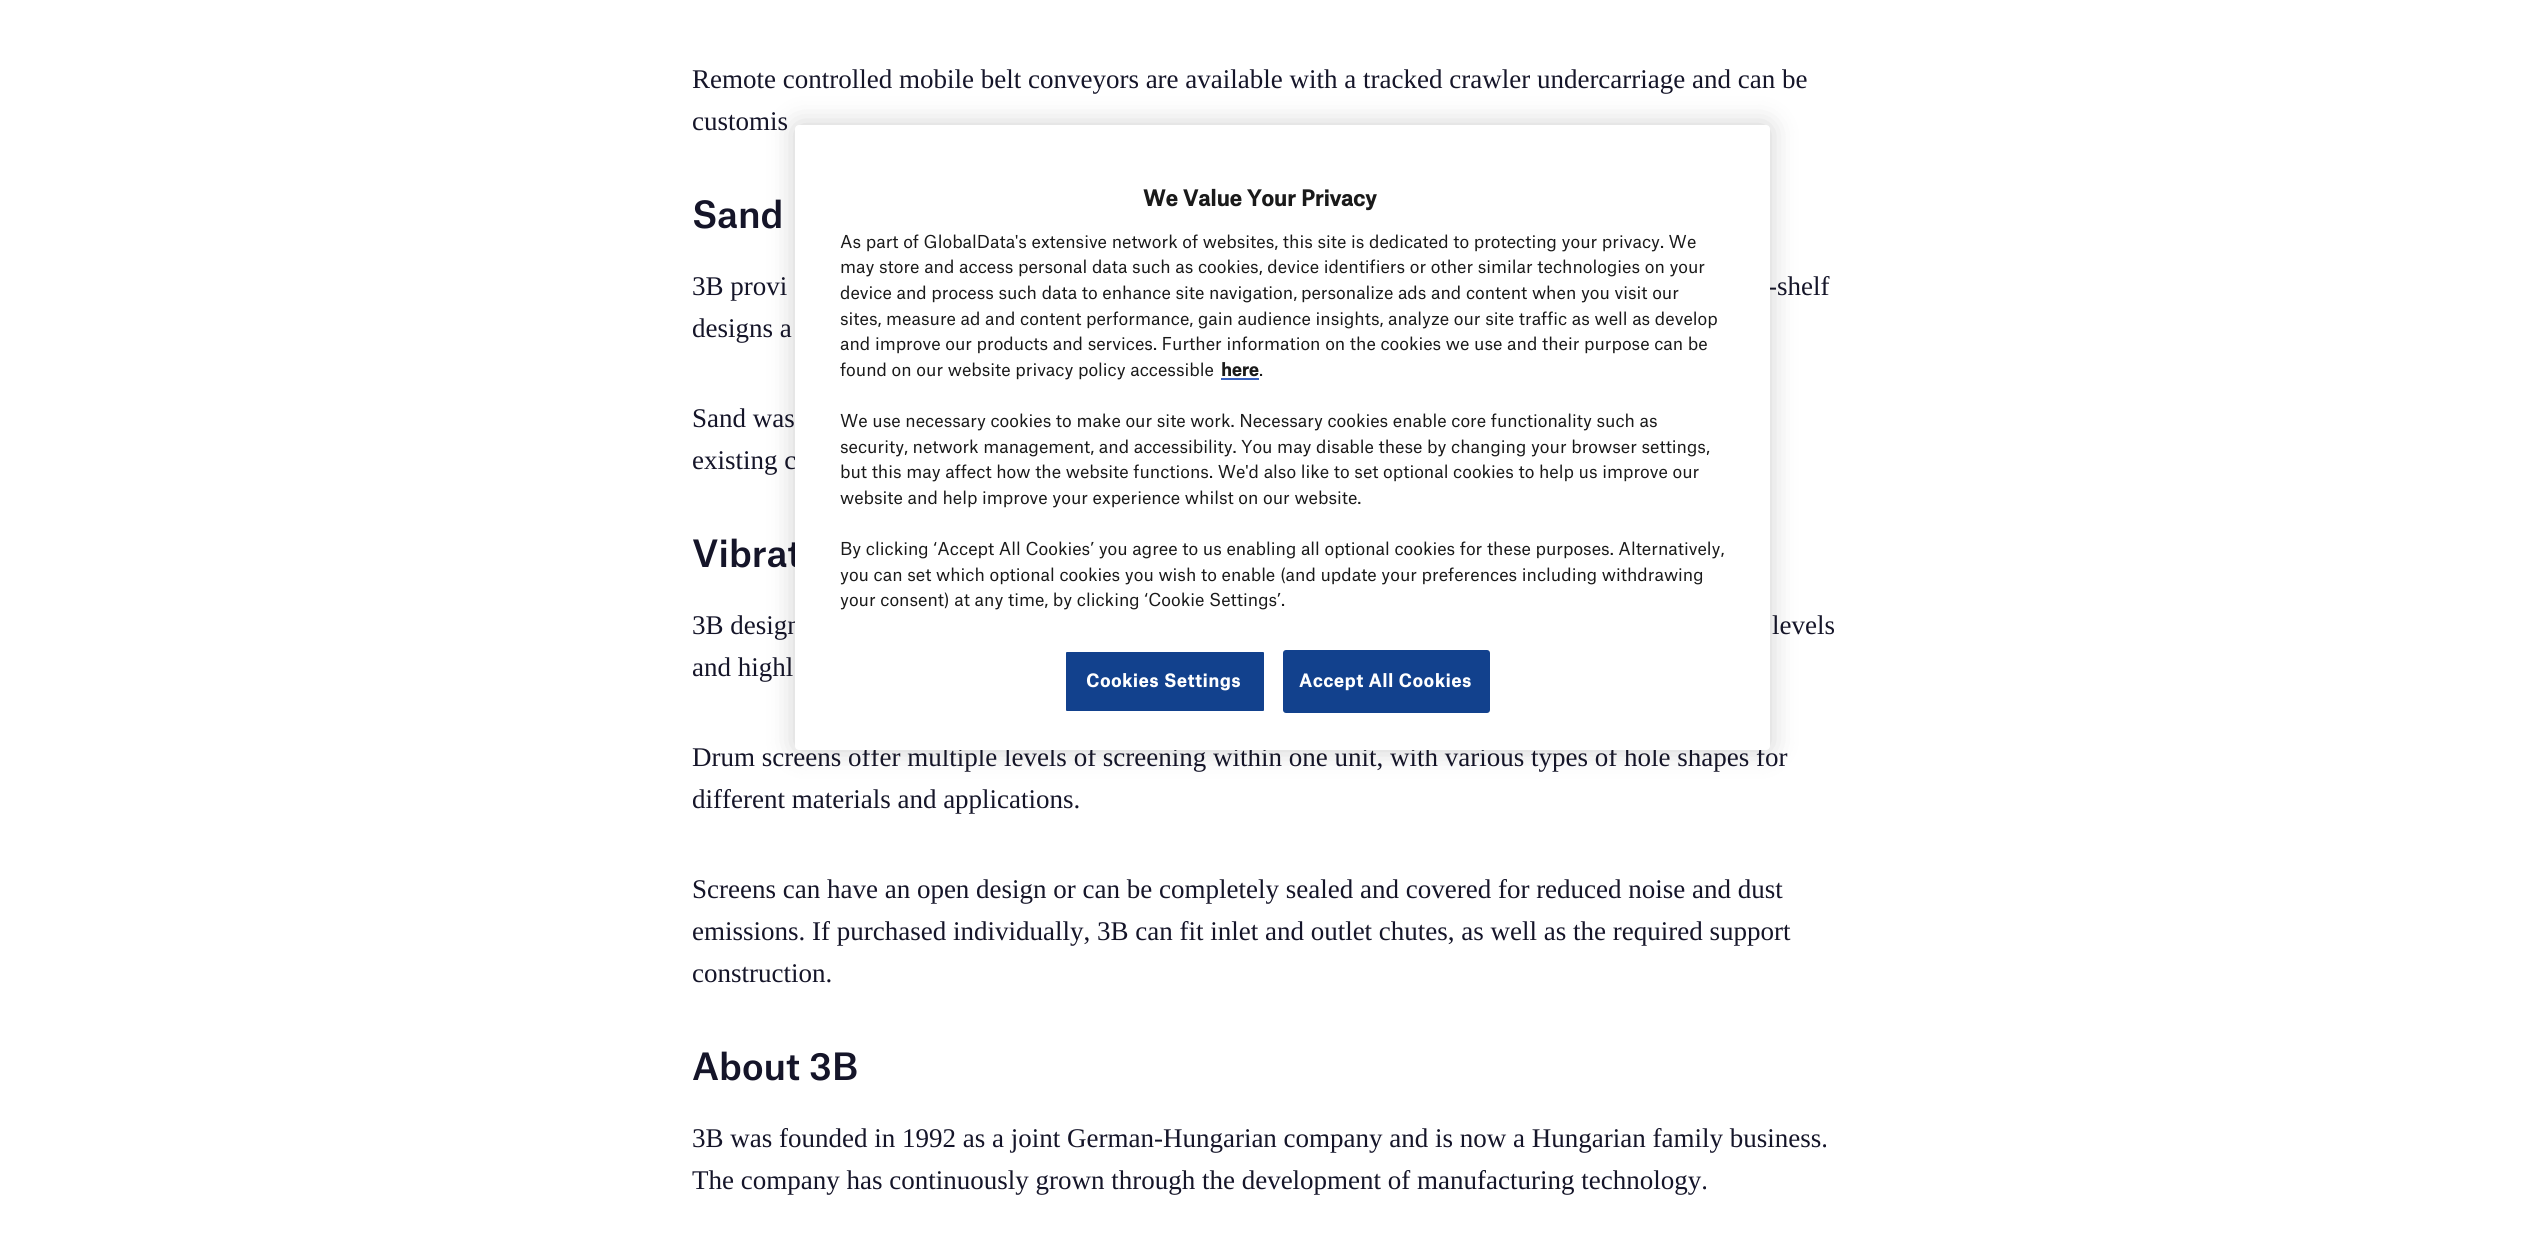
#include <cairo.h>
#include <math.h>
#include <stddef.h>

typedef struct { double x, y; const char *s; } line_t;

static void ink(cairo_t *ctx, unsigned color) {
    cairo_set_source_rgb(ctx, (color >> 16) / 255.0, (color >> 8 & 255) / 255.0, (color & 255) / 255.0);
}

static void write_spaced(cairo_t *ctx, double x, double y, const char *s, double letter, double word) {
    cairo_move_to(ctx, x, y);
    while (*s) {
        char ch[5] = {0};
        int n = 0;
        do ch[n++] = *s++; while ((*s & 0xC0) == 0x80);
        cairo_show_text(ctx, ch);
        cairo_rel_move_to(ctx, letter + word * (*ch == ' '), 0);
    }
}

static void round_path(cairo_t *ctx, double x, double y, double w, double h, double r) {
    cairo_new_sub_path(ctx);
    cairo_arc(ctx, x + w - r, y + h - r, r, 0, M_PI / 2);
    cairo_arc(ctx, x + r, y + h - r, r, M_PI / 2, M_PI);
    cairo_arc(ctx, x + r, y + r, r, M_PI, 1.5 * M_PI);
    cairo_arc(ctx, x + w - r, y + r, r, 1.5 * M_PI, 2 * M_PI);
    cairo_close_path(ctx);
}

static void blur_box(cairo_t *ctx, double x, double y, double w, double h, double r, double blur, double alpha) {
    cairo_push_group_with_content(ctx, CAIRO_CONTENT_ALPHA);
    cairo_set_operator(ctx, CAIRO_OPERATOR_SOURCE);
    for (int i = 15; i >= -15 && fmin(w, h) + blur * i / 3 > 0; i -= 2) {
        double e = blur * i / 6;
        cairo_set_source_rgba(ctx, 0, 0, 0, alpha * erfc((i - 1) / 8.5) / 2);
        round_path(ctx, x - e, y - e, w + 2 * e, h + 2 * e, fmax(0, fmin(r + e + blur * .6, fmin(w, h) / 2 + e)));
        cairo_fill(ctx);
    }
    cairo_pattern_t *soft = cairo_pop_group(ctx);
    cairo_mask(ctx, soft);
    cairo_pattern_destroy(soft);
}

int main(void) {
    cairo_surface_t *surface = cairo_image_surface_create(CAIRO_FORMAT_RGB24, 2544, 1238);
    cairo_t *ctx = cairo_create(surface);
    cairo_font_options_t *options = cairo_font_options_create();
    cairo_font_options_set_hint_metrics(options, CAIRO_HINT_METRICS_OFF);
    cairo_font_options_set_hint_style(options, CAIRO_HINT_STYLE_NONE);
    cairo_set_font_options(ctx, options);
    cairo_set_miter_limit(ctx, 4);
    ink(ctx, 0xFFFFFF);
    cairo_paint(ctx);
    cairo_select_font_face(ctx, "Liberation Serif", CAIRO_FONT_SLANT_NORMAL, CAIRO_FONT_WEIGHT_NORMAL);
    cairo_set_font_size(ctx, 27);
    ink(ctx, 0x151529);
    cairo_move_to(ctx, 692, 88);
    cairo_show_text(ctx, "Remote controlled mobile belt conveyors are available with a tracked crawler undercarriage and can be");
    cairo_move_to(ctx, 692, 130);
    cairo_show_text(ctx, "customis");
    cairo_select_font_face(ctx, "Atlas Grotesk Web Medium", CAIRO_FONT_SLANT_NORMAL, CAIRO_FONT_WEIGHT_NORMAL);
    cairo_set_font_size(ctx, 36);
    cairo_move_to(ctx, 692, 228);
    cairo_show_text(ctx, "Sand");
    cairo_select_font_face(ctx, "Liberation Serif", CAIRO_FONT_SLANT_NORMAL, CAIRO_FONT_WEIGHT_NORMAL);
    cairo_set_font_size(ctx, 27);
    {
        static const line_t items[] = {
            {692, 295, "3B provi"},
            {1768, 295, "-shelf"},
            {692, 337, "designs a"},
            {692, 427, "Sand was"},
            {692, 469, "existing c"},
        };
        for (size_t i = 0; i < sizeof items / sizeof *items; i++) {
            cairo_move_to(ctx, items[i].x, items[i].y);
            cairo_show_text(ctx, items[i].s);
        }
    }
    cairo_select_font_face(ctx, "Atlas Grotesk Web Medium", CAIRO_FONT_SLANT_NORMAL, CAIRO_FONT_WEIGHT_NORMAL);
    cairo_set_font_size(ctx, 36);
    cairo_move_to(ctx, 692, 567);
    cairo_show_text(ctx, "Vibrat");
    cairo_select_font_face(ctx, "Liberation Serif", CAIRO_FONT_SLANT_NORMAL, CAIRO_FONT_WEIGHT_NORMAL);
    cairo_set_font_size(ctx, 27);
    {
        static const line_t items[] = {
            {692, 634, "3B design"},
            {1772, 634, "levels"},
            {692, 676, "and highl"},
            {692, 766, "Drum screens offer multiple levels of screening within one unit, with various types of hole shapes for"},
            {692, 808, "different materials and applications."},
            {692, 898, "Screens can have an open design or can be completely sealed and covered for reduced noise and dust"},
            {692, 940, "emissions. If purchased individually, 3B can fit inlet and outlet chutes, as well as the required support"},
            {692, 982, "construction."},
        };
        for (size_t i = 0; i < sizeof items / sizeof *items; i++) {
            cairo_move_to(ctx, items[i].x, items[i].y);
            cairo_show_text(ctx, items[i].s);
        }
    }
    cairo_select_font_face(ctx, "Atlas Grotesk Web Medium", CAIRO_FONT_SLANT_NORMAL, CAIRO_FONT_WEIGHT_NORMAL);
    cairo_set_font_size(ctx, 36);
    cairo_move_to(ctx, 692, 1080);
    cairo_show_text(ctx, "About 3B");
    cairo_select_font_face(ctx, "Liberation Serif", CAIRO_FONT_SLANT_NORMAL, CAIRO_FONT_WEIGHT_NORMAL);
    cairo_set_font_size(ctx, 27);
    cairo_move_to(ctx, 692, 1147);
    cairo_show_text(ctx, "3B was founded in 1992 as a joint German-Hungarian company and is now a Hungarian family business.");
    cairo_move_to(ctx, 692, 1189);
    cairo_show_text(ctx, "The company has continuously grown through the development of manufacturing technology.");
    ink(ctx, 0x000000);
    blur_box(ctx, 795, 125, 975, 625, 4, 13.5, 0.2);
    ink(ctx, 0xFFFFFF);
    round_path(ctx, 795, 125, 975, 625, 4);
    cairo_fill(ctx);
    cairo_select_font_face(ctx, "Atlas Grotesk Web", CAIRO_FONT_SLANT_NORMAL, CAIRO_FONT_WEIGHT_BOLD);
    cairo_set_font_size(ctx, 21);
    ink(ctx, 0x1A1A1A);
    cairo_move_to(ctx, 1143, 206);
    cairo_show_text(ctx, "We Value Your Privacy");
    cairo_select_font_face(ctx, "Atlas Grotesk Web", CAIRO_FONT_SLANT_NORMAL, CAIRO_FONT_WEIGHT_NORMAL);
    cairo_set_font_size(ctx, 17.07);
    {
        static const line_t items[] = {
            {840, 248, "As part of GlobalData's extensive network of websites, this site is dedicated to protecting your privacy. We"},
            {840, 273, "may store and access personal data such as cookies, device identifiers or other similar technologies on your"},
            {840, 299, "device and process such data to enhance site navigation,"},
            {1301, 299, "personalize ads and content when you visit our"},
            {840, 325, "sites, measure ad and content performance, gain audience insights, analyze our site traffic as well as develop"},
            {840, 350, "and improve our products and services. Further information on the cookies we use and their purpose can be"},
            {840, 376, "found on our website privacy policy accessible"},
        };
        for (size_t i = 0; i < sizeof items / sizeof *items; i++) {
            cairo_move_to(ctx, items[i].x, items[i].y);
            cairo_show_text(ctx, items[i].s);
        }
    }
    cairo_select_font_face(ctx, "Atlas Grotesk Web", CAIRO_FONT_SLANT_NORMAL, CAIRO_FONT_WEIGHT_BOLD);
    cairo_move_to(ctx, 1221, 376);
    cairo_show_text(ctx, "here");
    ink(ctx, 0x3860BE);
    cairo_rectangle(ctx, 1221, 378, 38, 2);
    cairo_fill(ctx);
    cairo_select_font_face(ctx, "Atlas Grotesk Web", CAIRO_FONT_SLANT_NORMAL, CAIRO_FONT_WEIGHT_NORMAL);
    ink(ctx, 0x1A1A1A);
    {
        static const line_t items[] = {
            {1259, 376, "."},
            {840, 427, "We use necessary cookies to make our site work. Necessary cookies enable core functionality such as"},
            {840, 453, "security, network management, and accessibility. You may disable these by changing your browser settings,"},
            {840, 478, "but this may affect how the website functions. We'd also like to set optional cookies to help us improve our"},
            {840, 504, "website and help improve your experience whilst on our website."},
            {840, 555, "By clicking ‘Accept All Cookies’ you agree to us enabling all optional cookies for these purposes. Alternatively,"},
            {840, 581, "you can set which optional cookies you wish to enable (and update your preferences including withdrawing"},
            {840, 606, "your consent) at any time, by clicking ‘Cookie Settings’."},
        };
        for (size_t i = 0; i < sizeof items / sizeof *items; i++) {
            cairo_move_to(ctx, items[i].x, items[i].y);
            cairo_show_text(ctx, items[i].s);
        }
    }
    ink(ctx, 0x12418D);
    round_path(ctx, 1065, 651, 200, 61, 2);
    cairo_fill_preserve(ctx);
    ink(ctx, 0xFFFFFF);
    cairo_stroke(ctx);
    cairo_select_font_face(ctx, "Atlas Grotesk Web", CAIRO_FONT_SLANT_NORMAL, CAIRO_FONT_WEIGHT_BOLD);
    write_spaced(ctx, 1086, 687, "Cookies Settings", 0.8, 0);
    ink(ctx, 0x12418D);
    round_path(ctx, 1284, 651, 205, 61, 2);
    cairo_fill_preserve(ctx);
    cairo_stroke(ctx);
    ink(ctx, 0xFFFFFF);
    write_spaced(ctx, 1299, 687, "Accept All Cookies", 0.8, 0);
    cairo_surface_write_to_png(surface, "image.png");
    cairo_font_options_destroy(options);
    cairo_destroy(ctx);
    cairo_surface_destroy(surface);
    return 0;
}
